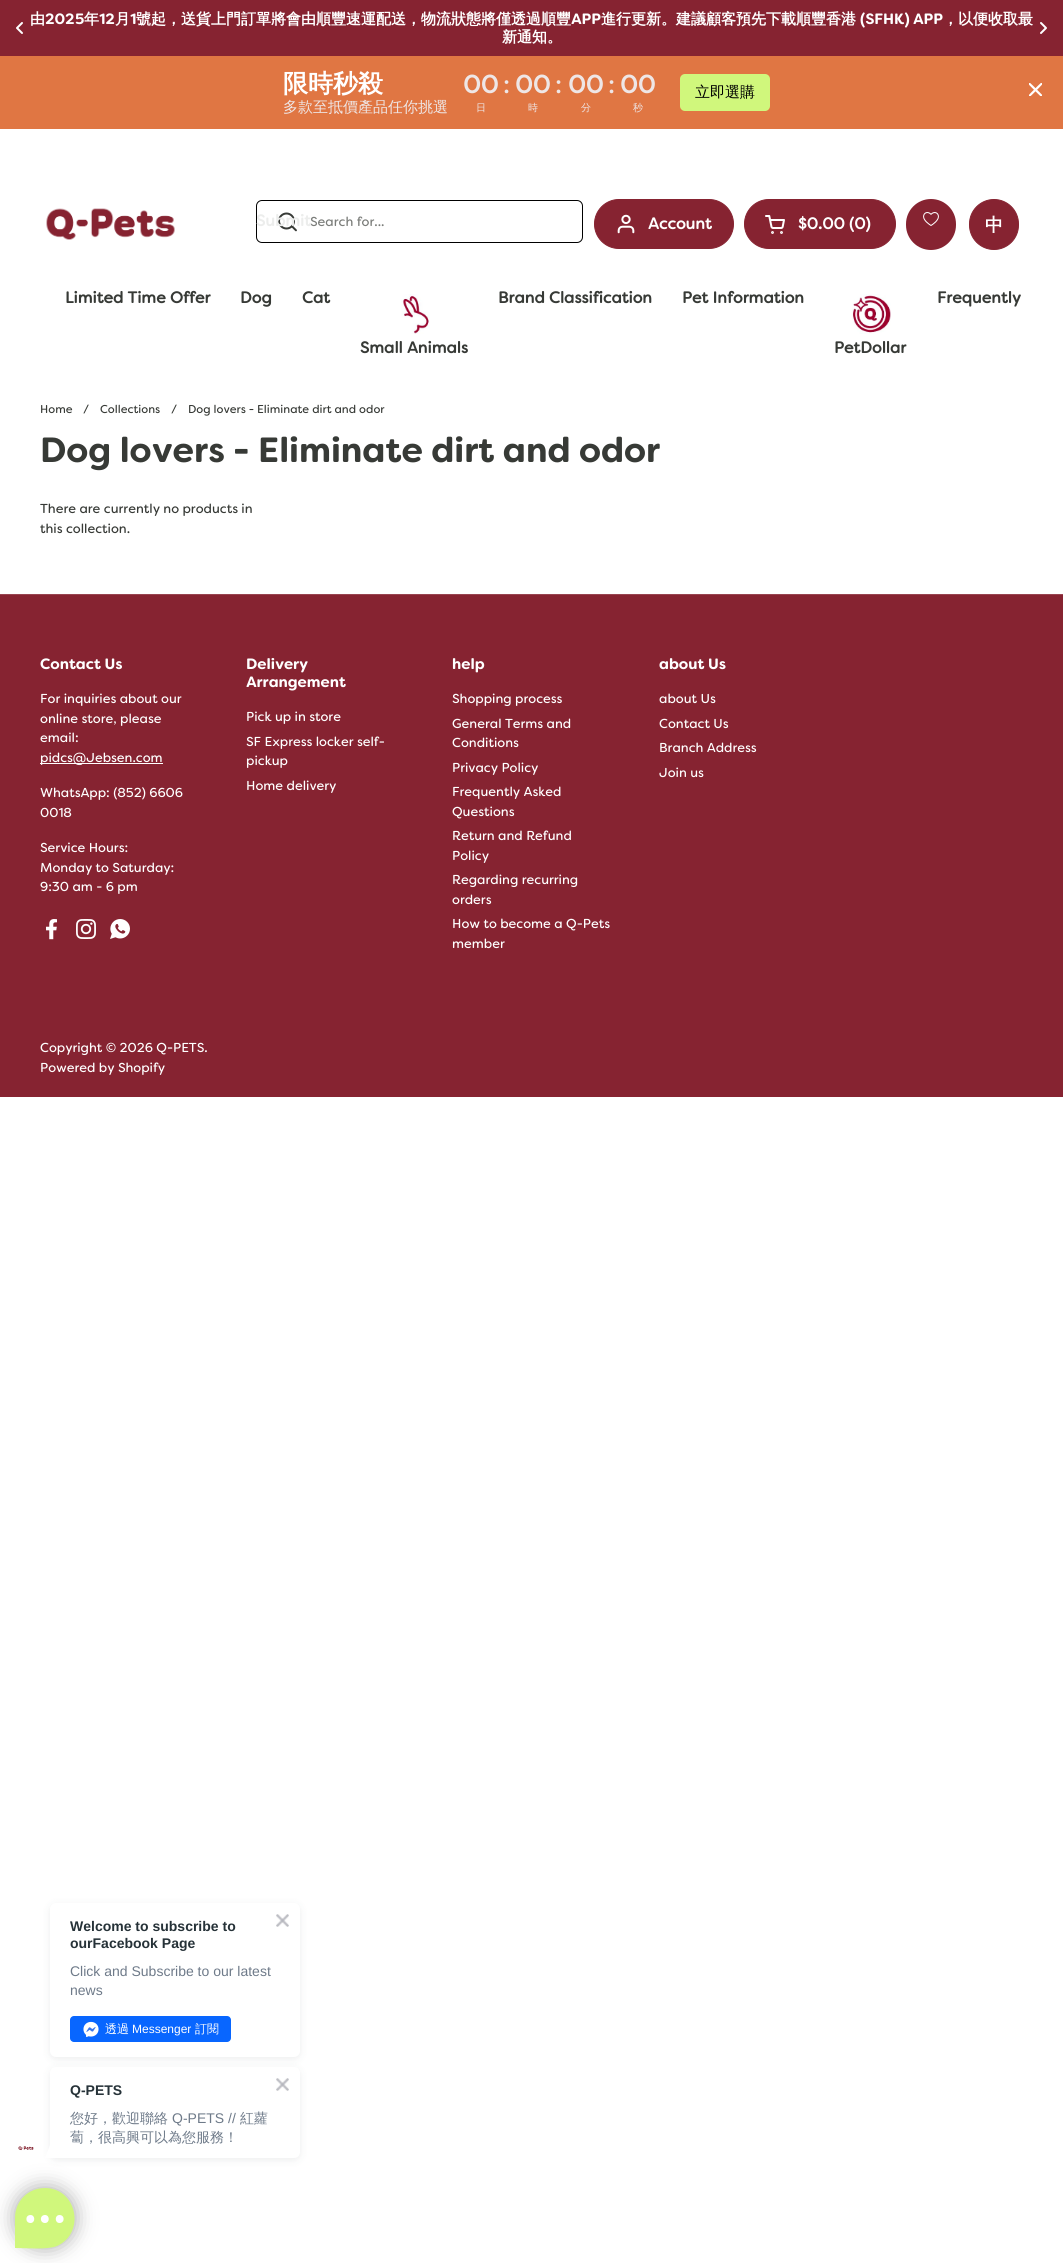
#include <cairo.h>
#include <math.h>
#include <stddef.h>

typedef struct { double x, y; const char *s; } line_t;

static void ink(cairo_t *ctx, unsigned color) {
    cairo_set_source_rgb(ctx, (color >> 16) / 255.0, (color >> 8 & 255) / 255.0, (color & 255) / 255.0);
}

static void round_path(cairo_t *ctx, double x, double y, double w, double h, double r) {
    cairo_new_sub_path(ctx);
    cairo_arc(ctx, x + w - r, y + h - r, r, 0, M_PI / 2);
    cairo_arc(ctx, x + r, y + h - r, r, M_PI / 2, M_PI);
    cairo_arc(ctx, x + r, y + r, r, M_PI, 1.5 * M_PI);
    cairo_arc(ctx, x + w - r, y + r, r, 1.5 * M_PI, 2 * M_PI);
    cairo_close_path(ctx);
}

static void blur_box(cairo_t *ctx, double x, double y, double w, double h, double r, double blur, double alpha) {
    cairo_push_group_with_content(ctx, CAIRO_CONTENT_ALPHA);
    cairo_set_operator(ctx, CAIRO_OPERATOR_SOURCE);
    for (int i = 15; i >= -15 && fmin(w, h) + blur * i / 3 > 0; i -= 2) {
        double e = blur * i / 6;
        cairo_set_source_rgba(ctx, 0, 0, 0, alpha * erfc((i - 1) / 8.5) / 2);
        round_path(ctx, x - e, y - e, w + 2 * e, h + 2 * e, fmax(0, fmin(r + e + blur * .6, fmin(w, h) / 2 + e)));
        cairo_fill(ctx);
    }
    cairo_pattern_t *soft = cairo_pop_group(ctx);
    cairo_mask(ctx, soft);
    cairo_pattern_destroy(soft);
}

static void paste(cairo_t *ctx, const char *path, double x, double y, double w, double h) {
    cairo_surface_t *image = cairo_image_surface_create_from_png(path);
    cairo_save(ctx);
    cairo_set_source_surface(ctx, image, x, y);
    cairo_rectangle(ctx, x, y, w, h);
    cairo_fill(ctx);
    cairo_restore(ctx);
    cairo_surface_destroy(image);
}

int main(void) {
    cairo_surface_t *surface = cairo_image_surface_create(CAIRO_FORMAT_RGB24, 1063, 2263);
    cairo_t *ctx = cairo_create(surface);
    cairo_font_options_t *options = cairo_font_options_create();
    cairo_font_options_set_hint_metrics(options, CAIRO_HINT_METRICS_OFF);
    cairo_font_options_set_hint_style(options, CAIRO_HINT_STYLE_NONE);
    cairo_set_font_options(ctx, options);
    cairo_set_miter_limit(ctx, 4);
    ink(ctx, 0xFFFFFF);
    cairo_paint(ctx);
    ink(ctx, 0x862331);
    cairo_rectangle(ctx, 0, 0, 1063, 56);
    cairo_fill(ctx);
    cairo_select_font_face(ctx, "WenQuanYi Zen Hei", CAIRO_FONT_SLANT_NORMAL, CAIRO_FONT_WEIGHT_BOLD);
    cairo_set_font_size(ctx, 15);
    ink(ctx, 0xFFFFFF);
    cairo_move_to(ctx, 30, 24);
    cairo_show_text(ctx, "由");
    cairo_select_font_face(ctx, "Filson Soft", CAIRO_FONT_SLANT_NORMAL, CAIRO_FONT_WEIGHT_BOLD);
    cairo_move_to(ctx, 45, 24);
    cairo_show_text(ctx, "2025");
    cairo_select_font_face(ctx, "WenQuanYi Zen Hei", CAIRO_FONT_SLANT_NORMAL, CAIRO_FONT_WEIGHT_BOLD);
    cairo_move_to(ctx, 84, 24);
    cairo_show_text(ctx, "年");
    cairo_select_font_face(ctx, "Filson Soft", CAIRO_FONT_SLANT_NORMAL, CAIRO_FONT_WEIGHT_BOLD);
    cairo_move_to(ctx, 99, 24);
    cairo_show_text(ctx, "12");
    cairo_select_font_face(ctx, "WenQuanYi Zen Hei", CAIRO_FONT_SLANT_NORMAL, CAIRO_FONT_WEIGHT_BOLD);
    cairo_move_to(ctx, 115, 24);
    cairo_show_text(ctx, "月");
    cairo_select_font_face(ctx, "Filson Soft", CAIRO_FONT_SLANT_NORMAL, CAIRO_FONT_WEIGHT_BOLD);
    cairo_move_to(ctx, 130, 24);
    cairo_show_text(ctx, "1");
    cairo_select_font_face(ctx, "WenQuanYi Zen Hei", CAIRO_FONT_SLANT_NORMAL, CAIRO_FONT_WEIGHT_BOLD);
    cairo_move_to(ctx, 136, 24);
    cairo_show_text(ctx, "號起，送貨上門訂單將會由順豐速運配送，物流狀態將僅透過順豐");
    cairo_select_font_face(ctx, "Filson Soft", CAIRO_FONT_SLANT_NORMAL, CAIRO_FONT_WEIGHT_BOLD);
    cairo_move_to(ctx, 571, 24);
    cairo_show_text(ctx, "APP");
    cairo_select_font_face(ctx, "WenQuanYi Zen Hei", CAIRO_FONT_SLANT_NORMAL, CAIRO_FONT_WEIGHT_BOLD);
    cairo_move_to(ctx, 601, 24);
    cairo_show_text(ctx, "進行更新。建議顧客預先下載順豐香港");
    cairo_select_font_face(ctx, "Filson Soft", CAIRO_FONT_SLANT_NORMAL, CAIRO_FONT_WEIGHT_BOLD);
    cairo_move_to(ctx, 860, 24);
    cairo_show_text(ctx, "(SFHK) APP");
    cairo_select_font_face(ctx, "WenQuanYi Zen Hei", CAIRO_FONT_SLANT_NORMAL, CAIRO_FONT_WEIGHT_BOLD);
    cairo_move_to(ctx, 943, 24);
    cairo_show_text(ctx, "，以便收取最");
    cairo_move_to(ctx, 502, 42);
    cairo_show_text(ctx, "新通知。");
    paste(ctx, "media/1.png", 16, 22, 7, 12);
    paste(ctx, "media/2.png", 1040, 22, 7, 12);
    ink(ctx, 0xE07643);
    cairo_rectangle(ctx, 0, 56, 1063, 73);
    cairo_fill(ctx);
    cairo_set_font_size(ctx, 25);
    ink(ctx, 0xFFFFFF);
    cairo_move_to(ctx, 283, 92);
    cairo_show_text(ctx, "限時秒殺");
    cairo_select_font_face(ctx, "WenQuanYi Zen Hei Medium", CAIRO_FONT_SLANT_NORMAL, CAIRO_FONT_WEIGHT_NORMAL);
    cairo_set_font_size(ctx, 15);
    ink(ctx, 0xEEE6E6);
    cairo_move_to(ctx, 283, 112);
    cairo_show_text(ctx, "多款至抵價產品任你挑選");
    cairo_select_font_face(ctx, "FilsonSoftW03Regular", CAIRO_FONT_SLANT_NORMAL, CAIRO_FONT_WEIGHT_BOLD);
    cairo_set_font_size(ctx, 25);
    cairo_move_to(ctx, 463, 93);
    cairo_show_text(ctx, "00");
    cairo_select_font_face(ctx, "FilsonSoftW03Regular", CAIRO_FONT_SLANT_NORMAL, CAIRO_FONT_WEIGHT_NORMAL);
    cairo_move_to(ctx, 503, 93);
    cairo_show_text(ctx, ":");
    cairo_select_font_face(ctx, "FilsonSoftW03Regular", CAIRO_FONT_SLANT_NORMAL, CAIRO_FONT_WEIGHT_BOLD);
    cairo_move_to(ctx, 515, 93);
    cairo_show_text(ctx, "00");
    cairo_select_font_face(ctx, "FilsonSoftW03Regular", CAIRO_FONT_SLANT_NORMAL, CAIRO_FONT_WEIGHT_NORMAL);
    cairo_move_to(ctx, 555, 93);
    cairo_show_text(ctx, ":");
    cairo_select_font_face(ctx, "FilsonSoftW03Regular", CAIRO_FONT_SLANT_NORMAL, CAIRO_FONT_WEIGHT_BOLD);
    cairo_move_to(ctx, 568, 93);
    cairo_show_text(ctx, "00");
    cairo_select_font_face(ctx, "FilsonSoftW03Regular", CAIRO_FONT_SLANT_NORMAL, CAIRO_FONT_WEIGHT_NORMAL);
    cairo_move_to(ctx, 608, 93);
    cairo_show_text(ctx, ":");
    cairo_select_font_face(ctx, "FilsonSoftW03Regular", CAIRO_FONT_SLANT_NORMAL, CAIRO_FONT_WEIGHT_BOLD);
    cairo_move_to(ctx, 620, 93);
    cairo_show_text(ctx, "00");
    cairo_select_font_face(ctx, "WenQuanYi Zen Hei Medium", CAIRO_FONT_SLANT_NORMAL, CAIRO_FONT_WEIGHT_NORMAL);
    cairo_set_font_size(ctx, 10);
    {
        static const line_t items[] = {
            {476, 111, "日"},
            {528, 111, "時"},
            {581, 111, "分"},
            {633, 111, "秒"},
        };
        for (size_t i = 0; i < sizeof items / sizeof *items; i++) {
            cairo_move_to(ctx, items[i].x, items[i].y);
            cairo_show_text(ctx, items[i].s);
        }
    }
    ink(ctx, 0xD0F77C);
    round_path(ctx, 680, 74, 90, 37, 5);
    cairo_fill(ctx);
    cairo_set_font_size(ctx, 15);
    ink(ctx, 0x000000);
    cairo_move_to(ctx, 695, 97);
    cairo_show_text(ctx, "立即選購");
    paste(ctx, "media/3.png", 1029, 83, 13, 13);
    paste(ctx, "media/4.png", 46, 208, 129, 32);
    round_path(ctx, 256.5, 200.5, 326, 42, 5.5);
    cairo_set_line_width(ctx, 1);
    cairo_stroke(ctx);
    paste(ctx, "media/5.png", 278, 212, 19, 20);
    cairo_select_font_face(ctx, "FilsonSoftW03Regular", CAIRO_FONT_SLANT_NORMAL, CAIRO_FONT_WEIGHT_NORMAL);
    cairo_set_font_size(ctx, 13);
    ink(ctx, 0x7B7D7A);
    cairo_move_to(ctx, 310, 226);
    cairo_show_text(ctx, "Search for...");
    cairo_select_font_face(ctx, "FilsonSoftW03Regular", CAIRO_FONT_SLANT_NORMAL, CAIRO_FONT_WEIGHT_BOLD);
    cairo_set_font_size(ctx, 16);
    ink(ctx, 0xECEDEC);
    cairo_move_to(ctx, 256, 226);
    cairo_show_text(ctx, "Submit");
    ink(ctx, 0x862331);
    round_path(ctx, 594.5, 199.5, 139, 49, 24.5);
    cairo_fill_preserve(ctx);
    cairo_stroke(ctx);
    paste(ctx, "media/6.png", 617, 214, 18, 20);
    ink(ctx, 0xFFFFFF);
    cairo_move_to(ctx, 648, 229);
    cairo_show_text(ctx, "Account");
    ink(ctx, 0x862331);
    round_path(ctx, 744.5, 199.5, 151, 49, 24.5);
    cairo_fill_preserve(ctx);
    cairo_stroke(ctx);
    paste(ctx, "media/7.png", 765, 215, 20, 19);
    ink(ctx, 0xFFFFFF);
    cairo_move_to(ctx, 798, 229);
    cairo_show_text(ctx, "$0.00 (0)");
    ink(ctx, 0x862331);
    round_path(ctx, 906, 199, 50, 51, 25);
    cairo_fill(ctx);
    paste(ctx, "media/8.png", 923, 212, 16, 14);
    round_path(ctx, 969.5, 199.5, 49, 50, 24.5);
    cairo_fill_preserve(ctx);
    cairo_stroke(ctx);
    cairo_select_font_face(ctx, "WenQuanYi Zen Hei", CAIRO_FONT_SLANT_NORMAL, CAIRO_FONT_WEIGHT_BOLD);
    cairo_set_font_size(ctx, 18);
    ink(ctx, 0xFFFFFF);
    cairo_move_to(ctx, 985, 231);
    cairo_show_text(ctx, "中");
    cairo_select_font_face(ctx, "FilsonSoftW03Regular", CAIRO_FONT_SLANT_NORMAL, CAIRO_FONT_WEIGHT_BOLD);
    cairo_set_font_size(ctx, 16);
    ink(ctx, 0x373A36);
    {
        static const line_t items[] = {
            {65, 303, "Limited Time Offer"},
            {240, 303, "Dog"},
            {302, 303, "Cat"},
            {498, 303, "Brand Classification"},
            {682, 303, "Pet Information"},
            {937, 303, "Frequently"},
        };
        for (size_t i = 0; i < sizeof items / sizeof *items; i++) {
            cairo_move_to(ctx, items[i].x, items[i].y);
            cairo_show_text(ctx, items[i].s);
        }
    }
    paste(ctx, "media/9.png", 401, 294, 29, 40);
    cairo_move_to(ctx, 360, 353);
    cairo_show_text(ctx, "Small Animals");
    paste(ctx, "media/10.png", 852, 294, 39, 40);
    cairo_move_to(ctx, 834, 353);
    cairo_show_text(ctx, "PetDollar");
    cairo_select_font_face(ctx, "FilsonSoftW03Regular", CAIRO_FONT_SLANT_NORMAL, CAIRO_FONT_WEIGHT_NORMAL);
    cairo_set_font_size(ctx, 11.4);
    {
        static const line_t items[] = {
            {40, 413, "Home"},
            {83, 413, "/"},
            {100, 413, "Collections"},
            {171, 413, "/"},
            {188, 413, "Dog lovers - Eliminate dirt and odor"},
        };
        for (size_t i = 0; i < sizeof items / sizeof *items; i++) {
            cairo_move_to(ctx, items[i].x, items[i].y);
            cairo_show_text(ctx, items[i].s);
        }
    }
    cairo_select_font_face(ctx, "Filson Soft", CAIRO_FONT_SLANT_NORMAL, CAIRO_FONT_WEIGHT_BOLD);
    cairo_set_font_size(ctx, 35);
    cairo_move_to(ctx, 40, 462);
    cairo_show_text(ctx, "Dog lovers - Eliminate dirt and odor");
    cairo_select_font_face(ctx, "FilsonSoftW03Regular", CAIRO_FONT_SLANT_NORMAL, CAIRO_FONT_WEIGHT_NORMAL);
    cairo_set_font_size(ctx, 13);
    cairo_move_to(ctx, 40, 513);
    cairo_show_text(ctx, "There are currently no products in");
    cairo_move_to(ctx, 40, 533);
    cairo_show_text(ctx, "this collection.");
    ink(ctx, 0x862331);
    cairo_rectangle(ctx, 0, 595, 1063, 502);
    cairo_fill(ctx);
    ink(ctx, 0x984450);
    cairo_rectangle(ctx, 0, 594, 1063, 1);
    cairo_fill(ctx);
    cairo_select_font_face(ctx, "Filson Soft", CAIRO_FONT_SLANT_NORMAL, CAIRO_FONT_WEIGHT_BOLD);
    cairo_set_font_size(ctx, 15);
    ink(ctx, 0xFFFFFF);
    cairo_move_to(ctx, 40, 669);
    cairo_show_text(ctx, "Contact Us");
    cairo_select_font_face(ctx, "FilsonSoftW03Regular", CAIRO_FONT_SLANT_NORMAL, CAIRO_FONT_WEIGHT_NORMAL);
    cairo_set_font_size(ctx, 13);
    {
        static const line_t items[] = {
            {40, 703, "For inquiries about our"},
            {40, 723, "online store, please"},
            {40, 742, "email:"},
        };
        for (size_t i = 0; i < sizeof items / sizeof *items; i++) {
            cairo_move_to(ctx, items[i].x, items[i].y);
            cairo_show_text(ctx, items[i].s);
        }
    }
    cairo_rectangle(ctx, 40, 763, 123, 1);
    cairo_fill(ctx);
    {
        static const line_t items[] = {
            {40, 762, "pidcs@Jebsen.com"},
            {40, 797, "WhatsApp: (852) 6606"},
            {40, 817, "0018"},
            {40, 852, "Service Hours:"},
            {40, 872, "Monday to Saturday:"},
            {40, 891, "9:30 am - 6 pm"},
        };
        for (size_t i = 0; i < sizeof items / sizeof *items; i++) {
            cairo_move_to(ctx, items[i].x, items[i].y);
            cairo_show_text(ctx, items[i].s);
        }
    }
    paste(ctx, "media/11.png", 46, 919, 11, 21);
    paste(ctx, "media/12.png", 76, 919, 20, 20);
    paste(ctx, "media/13.png", 110, 919, 20, 20);
    cairo_select_font_face(ctx, "Filson Soft", CAIRO_FONT_SLANT_NORMAL, CAIRO_FONT_WEIGHT_BOLD);
    cairo_set_font_size(ctx, 15);
    cairo_move_to(ctx, 246, 669);
    cairo_show_text(ctx, "Delivery");
    cairo_move_to(ctx, 246, 687);
    cairo_show_text(ctx, "Arrangement");
    cairo_select_font_face(ctx, "FilsonSoftW03Regular", CAIRO_FONT_SLANT_NORMAL, CAIRO_FONT_WEIGHT_NORMAL);
    cairo_set_font_size(ctx, 13);
    {
        static const line_t items[] = {
            {246, 721, "Pick up in store"},
            {246, 746, "SF Express locker self-"},
            {246, 765, "pickup"},
            {246, 790, "Home delivery"},
        };
        for (size_t i = 0; i < sizeof items / sizeof *items; i++) {
            cairo_move_to(ctx, items[i].x, items[i].y);
            cairo_show_text(ctx, items[i].s);
        }
    }
    cairo_select_font_face(ctx, "Filson Soft", CAIRO_FONT_SLANT_NORMAL, CAIRO_FONT_WEIGHT_BOLD);
    cairo_set_font_size(ctx, 15);
    cairo_move_to(ctx, 452, 669);
    cairo_show_text(ctx, "help");
    cairo_select_font_face(ctx, "FilsonSoftW03Regular", CAIRO_FONT_SLANT_NORMAL, CAIRO_FONT_WEIGHT_NORMAL);
    cairo_set_font_size(ctx, 13);
    {
        static const line_t items[] = {
            {452, 703, "Shopping process"},
            {452, 728, "General Terms and"},
            {452, 747, "Conditions"},
            {452, 772, "Privacy Policy"},
            {452, 796, "Frequently Asked"},
            {452, 816, "Questions"},
            {452, 840, "Return and Refund"},
            {452, 860, "Policy"},
            {452, 884, "Regarding recurring"},
            {452, 904, "orders"},
            {452, 928, "How to become a Q-Pets"},
            {452, 948, "member"},
        };
        for (size_t i = 0; i < sizeof items / sizeof *items; i++) {
            cairo_move_to(ctx, items[i].x, items[i].y);
            cairo_show_text(ctx, items[i].s);
        }
    }
    cairo_select_font_face(ctx, "Filson Soft", CAIRO_FONT_SLANT_NORMAL, CAIRO_FONT_WEIGHT_BOLD);
    cairo_set_font_size(ctx, 15);
    cairo_move_to(ctx, 659, 669);
    cairo_show_text(ctx, "about Us");
    cairo_select_font_face(ctx, "FilsonSoftW03Regular", CAIRO_FONT_SLANT_NORMAL, CAIRO_FONT_WEIGHT_NORMAL);
    cairo_set_font_size(ctx, 13);
    {
        static const line_t items[] = {
            {659, 703, "about Us"},
            {659, 728, "Contact Us"},
            {659, 752, "Branch Address"},
            {659, 777, "Join us"},
            {40, 1052, "Copyright © 2026 Q-PETS."},
            {40, 1072, "Powered by Shopify"},
        };
        for (size_t i = 0; i < sizeof items / sizeof *items; i++) {
            cairo_move_to(ctx, items[i].x, items[i].y);
            cairo_show_text(ctx, items[i].s);
        }
    }
    ink(ctx, 0x232F35);
    blur_box(ctx, 50, 1905, 250, 154, 6, 4, 0.09);
    ink(ctx, 0xFFFFFF);
    round_path(ctx, 50, 1903, 250, 154, 6);
    cairo_fill(ctx);
    cairo_select_font_face(ctx, "Liberation Sans", CAIRO_FONT_SLANT_NORMAL, CAIRO_FONT_WEIGHT_BOLD);
    cairo_set_font_size(ctx, 14);
    ink(ctx, 0x263238);
    cairo_move_to(ctx, 70, 1931);
    cairo_show_text(ctx, "Welcome to subscribe to");
    cairo_move_to(ctx, 70, 1948);
    cairo_show_text(ctx, "ourFacebook Page");
    paste(ctx, "media/14.png", 276, 1914, 13, 13);
    cairo_select_font_face(ctx, "Liberation Sans", CAIRO_FONT_SLANT_NORMAL, CAIRO_FONT_WEIGHT_NORMAL);
    ink(ctx, 0x6E7A89);
    cairo_move_to(ctx, 70, 1976);
    cairo_show_text(ctx, "Click and Subscribe to our latest");
    cairo_move_to(ctx, 70, 1995);
    cairo_show_text(ctx, "news");
    ink(ctx, 0x0866FF);
    round_path(ctx, 70, 2016, 161, 26, 4);
    cairo_fill(ctx);
    paste(ctx, "media/15.png", 83, 2021, 16, 16);
    cairo_select_font_face(ctx, "WenQuanYi Zen Hei Medium", CAIRO_FONT_SLANT_NORMAL, CAIRO_FONT_WEIGHT_NORMAL);
    cairo_set_font_size(ctx, 12);
    ink(ctx, 0xFFFFFF);
    cairo_move_to(ctx, 105, 2033);
    cairo_show_text(ctx, "透過");
    cairo_select_font_face(ctx, "Liberation Sans", CAIRO_FONT_SLANT_NORMAL, CAIRO_FONT_WEIGHT_NORMAL);
    cairo_move_to(ctx, 132, 2033);
    cairo_show_text(ctx, "Messenger");
    cairo_select_font_face(ctx, "WenQuanYi Zen Hei Medium", CAIRO_FONT_SLANT_NORMAL, CAIRO_FONT_WEIGHT_NORMAL);
    cairo_move_to(ctx, 195, 2033);
    cairo_show_text(ctx, "訂閱");
    ink(ctx, 0x232F35);
    blur_box(ctx, 50, 2069, 250, 91, 6, 4, 0.09);
    ink(ctx, 0xFFFFFF);
    cairo_new_path(ctx);
    cairo_move_to(ctx, 56, 2067);
    cairo_line_to(ctx, 294, 2067);
    cairo_curve_to(ctx, 297.5, 2067, 300, 2069.5, 300, 2073);
    cairo_line_to(ctx, 300, 2152);
    cairo_curve_to(ctx, 300, 2155.5, 297.5, 2158, 294, 2158);
    cairo_line_to(ctx, 50, 2158);
    cairo_line_to(ctx, 50, 2073);
    cairo_curve_to(ctx, 50, 2069.5, 52.5, 2067, 56, 2067);
    cairo_close_path(ctx);
    cairo_fill(ctx);
    cairo_select_font_face(ctx, "Liberation Sans", CAIRO_FONT_SLANT_NORMAL, CAIRO_FONT_WEIGHT_BOLD);
    cairo_set_font_size(ctx, 14);
    ink(ctx, 0x263238);
    cairo_move_to(ctx, 70, 2095);
    cairo_show_text(ctx, "Q-PETS");
    paste(ctx, "media/14.png", 276, 2078, 13, 13);
    cairo_select_font_face(ctx, "WenQuanYi Zen Hei Medium", CAIRO_FONT_SLANT_NORMAL, CAIRO_FONT_WEIGHT_NORMAL);
    ink(ctx, 0x6E7A89);
    cairo_move_to(ctx, 70, 2123);
    cairo_show_text(ctx, "您好，歡迎聯絡");
    cairo_select_font_face(ctx, "Liberation Sans", CAIRO_FONT_SLANT_NORMAL, CAIRO_FONT_WEIGHT_NORMAL);
    cairo_move_to(ctx, 172, 2123);
    cairo_show_text(ctx, "Q-PETS //");
    cairo_select_font_face(ctx, "WenQuanYi Zen Hei Medium", CAIRO_FONT_SLANT_NORMAL, CAIRO_FONT_WEIGHT_NORMAL);
    cairo_move_to(ctx, 240, 2123);
    cairo_show_text(ctx, "紅蘿");
    cairo_move_to(ctx, 70, 2142);
    cairo_show_text(ctx, "蔔，很高興可以為您服務！");
    paste(ctx, "media/16.png", 18, 2146, 16, 5);
    ink(ctx, 0xFFFFFF);
    cairo_new_path(ctx);
    cairo_move_to(ctx, 50, 2158);
    cairo_line_to(ctx, 45, 2158);
    cairo_line_to(ctx, 50, 2145);
    cairo_close_path(ctx);
    cairo_fill(ctx);
    ink(ctx, 0x777777);
    blur_box(ctx, 15, 2188, 60, 60, 30, 10, 0.64);
    ink(ctx, 0xD0F77C);
    cairo_new_path(ctx);
    cairo_move_to(ctx, 45, 2188);
    cairo_curve_to(ctx, 28, 2188, 15, 2201, 15, 2218);
    cairo_line_to(ctx, 15, 2248);
    cairo_curve_to(ctx, 26, 2248, 47, 2250, 57, 2246);
    cairo_curve_to(ctx, 86, 2233, 77, 2188, 45, 2188);
    cairo_close_path(ctx);
    cairo_fill(ctx);
    ink(ctx, 0xFFFFFF);
    cairo_new_path(ctx);
    cairo_move_to(ctx, 59.5, 2215);
    cairo_curve_to(ctx, 54.5, 2215, 54.5, 2223, 59.5, 2223);
    cairo_curve_to(ctx, 65, 2223, 65, 2215, 59.5, 2215);
    cairo_close_path(ctx);
    cairo_move_to(ctx, 30.5, 2215);
    cairo_curve_to(ctx, 25, 2215, 25, 2223, 30.5, 2223);
    cairo_curve_to(ctx, 35.5, 2223, 35.5, 2215, 30.5, 2215);
    cairo_close_path(ctx);
    cairo_fill(ctx);
    cairo_new_path(ctx);
    cairo_move_to(ctx, 45, 2215);
    cairo_curve_to(ctx, 39.5, 2215, 39.5, 2223, 45, 2223);
    cairo_curve_to(ctx, 50, 2223, 50, 2215, 45, 2215);
    cairo_close_path(ctx);
    cairo_fill(ctx);
    cairo_surface_write_to_png(surface, "image.png");
    cairo_font_options_destroy(options);
    cairo_destroy(ctx);
    cairo_surface_destroy(surface);
    return 0;
}
